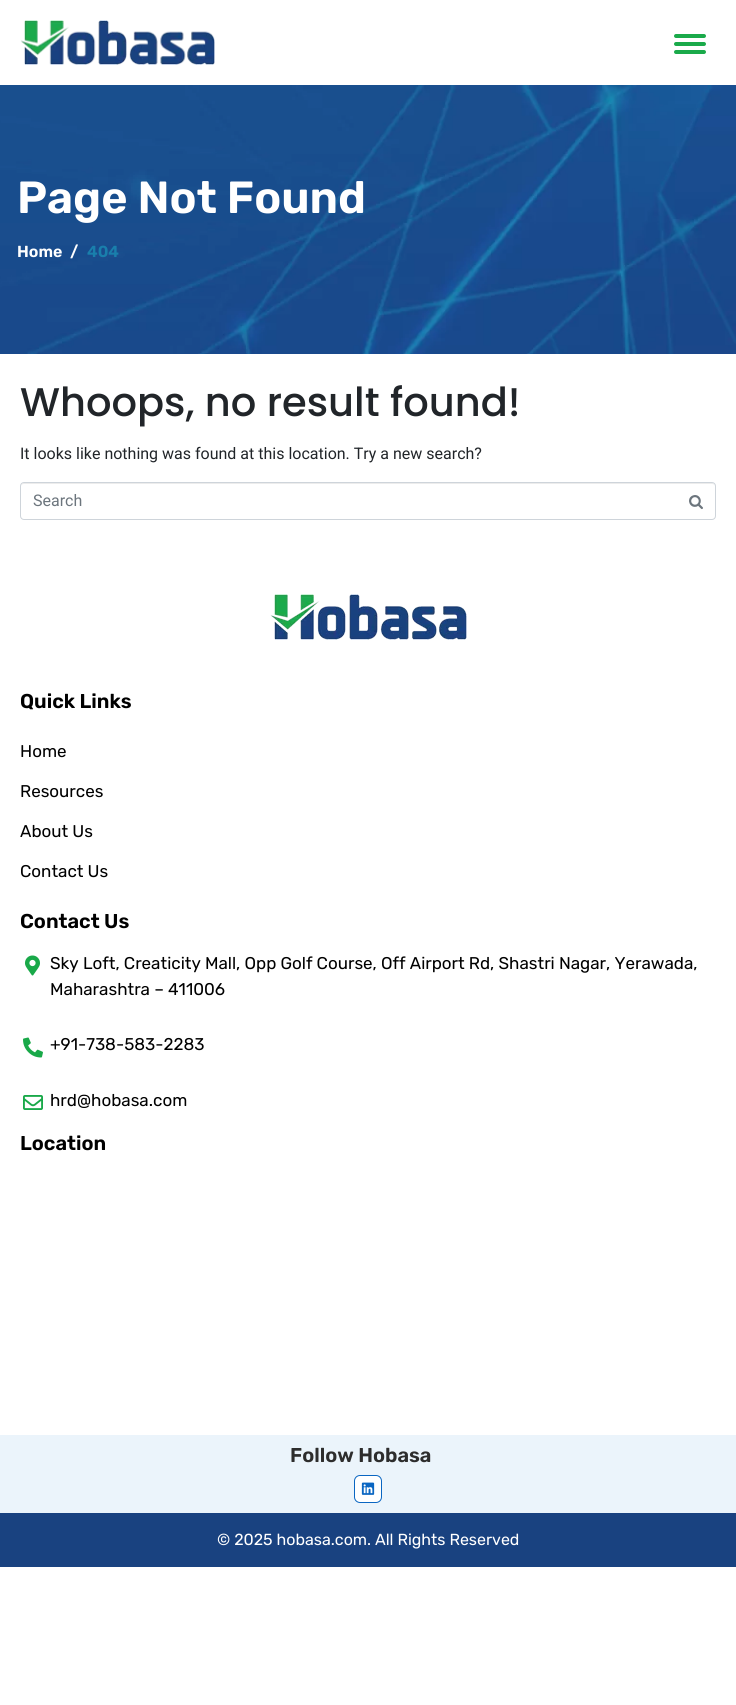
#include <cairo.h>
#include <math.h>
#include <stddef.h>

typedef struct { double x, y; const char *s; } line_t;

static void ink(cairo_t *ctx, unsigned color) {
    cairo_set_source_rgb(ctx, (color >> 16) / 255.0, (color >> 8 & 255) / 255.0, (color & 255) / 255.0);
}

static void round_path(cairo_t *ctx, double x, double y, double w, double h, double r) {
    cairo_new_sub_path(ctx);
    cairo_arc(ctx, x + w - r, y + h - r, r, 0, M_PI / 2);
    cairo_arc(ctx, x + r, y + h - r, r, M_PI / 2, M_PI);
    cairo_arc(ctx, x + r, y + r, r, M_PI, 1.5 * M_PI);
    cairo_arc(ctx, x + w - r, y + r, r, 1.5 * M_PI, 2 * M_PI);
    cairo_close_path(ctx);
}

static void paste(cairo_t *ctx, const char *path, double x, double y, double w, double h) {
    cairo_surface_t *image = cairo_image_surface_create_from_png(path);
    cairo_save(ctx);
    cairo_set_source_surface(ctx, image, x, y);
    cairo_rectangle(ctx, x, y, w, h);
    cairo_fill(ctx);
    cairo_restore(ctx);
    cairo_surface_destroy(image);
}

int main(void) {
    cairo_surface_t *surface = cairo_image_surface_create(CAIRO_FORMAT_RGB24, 736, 1705);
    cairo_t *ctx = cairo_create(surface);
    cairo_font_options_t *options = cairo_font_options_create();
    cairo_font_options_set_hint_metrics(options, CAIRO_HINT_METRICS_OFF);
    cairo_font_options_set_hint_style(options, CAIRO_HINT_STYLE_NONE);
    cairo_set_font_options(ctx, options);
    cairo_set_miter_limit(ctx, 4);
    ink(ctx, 0xFFFFFF);
    cairo_paint(ctx);
    paste(ctx, "media/1.png", 20, 20, 195, 45);
    ink(ctx, 0x1AAA4A);
    round_path(ctx, 674, 34, 32, 4, 2);
    cairo_fill(ctx);
    round_path(ctx, 674, 42, 32, 4, 2);
    cairo_fill(ctx);
    round_path(ctx, 674, 50, 32, 4, 2);
    cairo_fill(ctx);
    paste(ctx, "media/2.png", 0, 85, 736, 269);
    cairo_select_font_face(ctx, "Rubik SemiBold", CAIRO_FONT_SLANT_NORMAL, CAIRO_FONT_WEIGHT_NORMAL);
    cairo_set_font_size(ctx, 45);
    ink(ctx, 0xFFFFFF);
    cairo_move_to(ctx, 17, 213);
    cairo_show_text(ctx, "Page Not Found");
    cairo_set_font_size(ctx, 16);
    cairo_move_to(ctx, 17, 257);
    cairo_show_text(ctx, "Home");
    cairo_move_to(ctx, 70, 257);
    cairo_show_text(ctx, "/");
    ink(ctx, 0x197FAC);
    cairo_move_to(ctx, 87, 257);
    cairo_show_text(ctx, "404");
    cairo_select_font_face(ctx, "Poppins Medium", CAIRO_FONT_SLANT_NORMAL, CAIRO_FONT_WEIGHT_NORMAL);
    cairo_set_font_size(ctx, 40);
    ink(ctx, 0x212529);
    cairo_move_to(ctx, 20, 416);
    cairo_show_text(ctx, "Whoops, no result found!");
    cairo_select_font_face(ctx, "Roboto", CAIRO_FONT_SLANT_NORMAL, CAIRO_FONT_WEIGHT_NORMAL);
    cairo_set_font_size(ctx, 16);
    cairo_move_to(ctx, 20, 459);
    cairo_show_text(ctx, "It looks like nothing was found at this location. Try a new search?");
    ink(ctx, 0xECECEC);
    cairo_new_path(ctx);
    cairo_move_to(ctx, 24, 484);
    cairo_line_to(ctx, 712, 484);
    cairo_curve_to(ctx, 714, 484, 715, 485, 715, 487);
    cairo_curve_to(ctx, 715, 485, 714, 483, 712, 483);
    cairo_line_to(ctx, 24, 483);
    cairo_curve_to(ctx, 22, 483, 21, 485, 21, 487);
    cairo_curve_to(ctx, 21, 485, 22, 484, 24, 484);
    cairo_close_path(ctx);
    cairo_fill(ctx);
    round_path(ctx, 20.5, 482.5, 695, 37, 3.5);
    ink(ctx, 0xCED4DA);
    cairo_set_line_width(ctx, 1);
    cairo_stroke(ctx);
    ink(ctx, 0x6C757D);
    cairo_move_to(ctx, 33, 506);
    cairo_show_text(ctx, "Search");
    paste(ctx, "media/3.png", 689, 495, 14, 15);
    paste(ctx, "media/4.png", 270, 594, 197, 46);
    cairo_select_font_face(ctx, "Rubik SemiBold", CAIRO_FONT_SLANT_NORMAL, CAIRO_FONT_WEIGHT_NORMAL);
    cairo_set_font_size(ctx, 20);
    ink(ctx, 0x000000);
    cairo_move_to(ctx, 20, 708);
    cairo_show_text(ctx, "Quick Links");
    cairo_select_font_face(ctx, "Rubik", CAIRO_FONT_SLANT_NORMAL, CAIRO_FONT_WEIGHT_NORMAL);
    cairo_set_font_size(ctx, 17);
    {
        static const line_t items[] = {
            {20, 757, "Home"},
            {20, 797, "Resources"},
            {20, 837, "About Us"},
            {20, 877, "Contact Us"},
        };
        for (size_t i = 0; i < sizeof items / sizeof *items; i++) {
            cairo_move_to(ctx, items[i].x, items[i].y);
            cairo_show_text(ctx, items[i].s);
        }
    }
    cairo_select_font_face(ctx, "Rubik SemiBold", CAIRO_FONT_SLANT_NORMAL, CAIRO_FONT_WEIGHT_NORMAL);
    cairo_set_font_size(ctx, 20);
    cairo_move_to(ctx, 20, 928);
    cairo_show_text(ctx, "Contact Us");
    paste(ctx, "media/5.png", 25, 955, 15, 21);
    cairo_select_font_face(ctx, "Rubik", CAIRO_FONT_SLANT_NORMAL, CAIRO_FONT_WEIGHT_NORMAL);
    cairo_set_font_size(ctx, 17);
    cairo_move_to(ctx, 50, 969);
    cairo_show_text(ctx, "Sky Loft, Creaticity Mall, Opp Golf Course, Off Airport Rd, Shastri Nagar, Yerawada,");
    cairo_move_to(ctx, 50, 995);
    cairo_show_text(ctx, "Maharashtra – 411006");
    paste(ctx, "media/6.png", 23, 1037, 20, 21);
    cairo_move_to(ctx, 50, 1050);
    cairo_show_text(ctx, "+91-738-583-2283");
    paste(ctx, "media/7.png", 23, 1095, 20, 15);
    cairo_move_to(ctx, 50, 1106);
    cairo_show_text(ctx, "hrd@hobasa.com");
    cairo_select_font_face(ctx, "Rubik SemiBold", CAIRO_FONT_SLANT_NORMAL, CAIRO_FONT_WEIGHT_NORMAL);
    cairo_set_font_size(ctx, 20);
    cairo_move_to(ctx, 20, 1150);
    cairo_show_text(ctx, "Location");
    ink(ctx, 0xEBF4FB);
    cairo_rectangle(ctx, 0, 1435, 736, 78);
    cairo_fill(ctx);
    ink(ctx, 0x2D2D2D);
    cairo_move_to(ctx, 290, 1462);
    cairo_show_text(ctx, "Follow Hobasa");
    ink(ctx, 0xFFFFFF);
    round_path(ctx, 354.5, 1475.5, 27, 27, 5.5);
    cairo_fill_preserve(ctx);
    ink(ctx, 0x0A66C2);
    cairo_stroke(ctx);
    paste(ctx, "media/8.png", 361, 1482, 14, 13);
    ink(ctx, 0x194280);
    cairo_rectangle(ctx, 0, 1513, 736, 54);
    cairo_fill(ctx);
    cairo_select_font_face(ctx, "Rubik", CAIRO_FONT_SLANT_NORMAL, CAIRO_FONT_WEIGHT_NORMAL);
    cairo_set_font_size(ctx, 16);
    ink(ctx, 0xFFFFFF);
    cairo_move_to(ctx, 217, 1545);
    cairo_show_text(ctx, "© 2025 hobasa.com. All Rights Reserved");
    cairo_surface_write_to_png(surface, "image.png");
    cairo_font_options_destroy(options);
    cairo_destroy(ctx);
    cairo_surface_destroy(surface);
    return 0;
}
